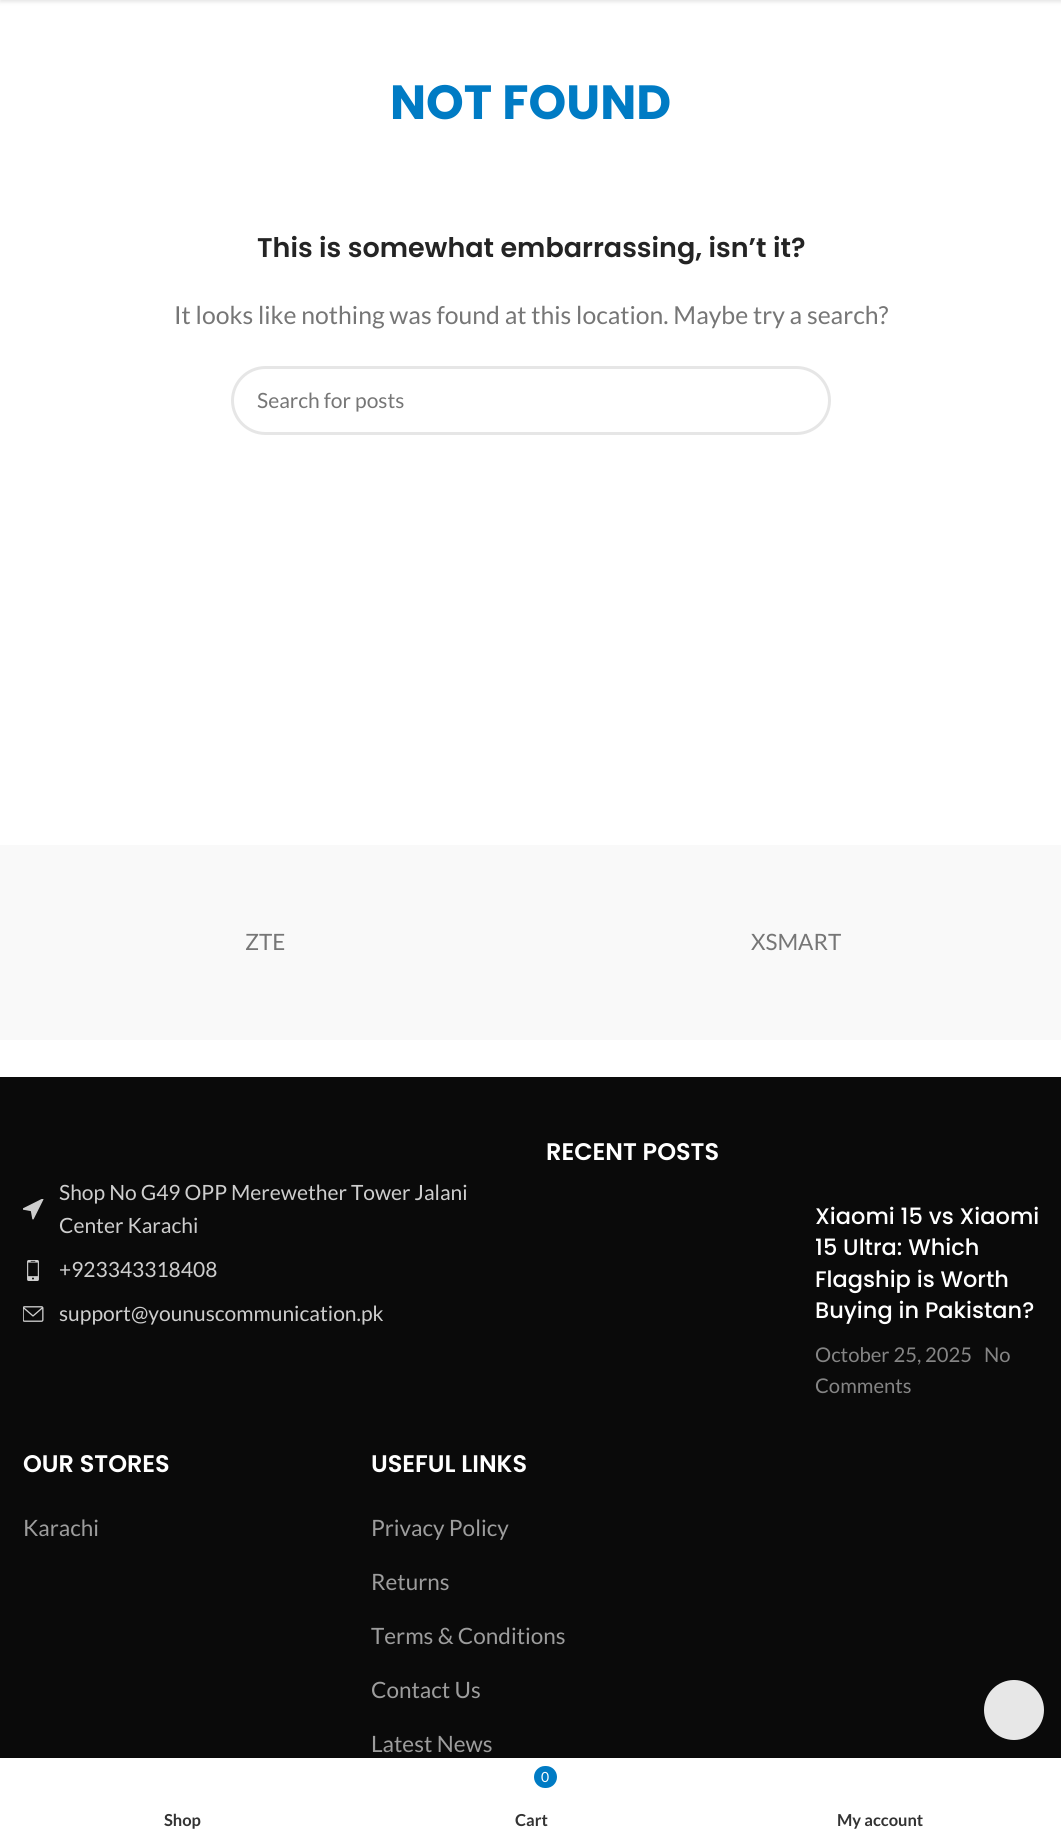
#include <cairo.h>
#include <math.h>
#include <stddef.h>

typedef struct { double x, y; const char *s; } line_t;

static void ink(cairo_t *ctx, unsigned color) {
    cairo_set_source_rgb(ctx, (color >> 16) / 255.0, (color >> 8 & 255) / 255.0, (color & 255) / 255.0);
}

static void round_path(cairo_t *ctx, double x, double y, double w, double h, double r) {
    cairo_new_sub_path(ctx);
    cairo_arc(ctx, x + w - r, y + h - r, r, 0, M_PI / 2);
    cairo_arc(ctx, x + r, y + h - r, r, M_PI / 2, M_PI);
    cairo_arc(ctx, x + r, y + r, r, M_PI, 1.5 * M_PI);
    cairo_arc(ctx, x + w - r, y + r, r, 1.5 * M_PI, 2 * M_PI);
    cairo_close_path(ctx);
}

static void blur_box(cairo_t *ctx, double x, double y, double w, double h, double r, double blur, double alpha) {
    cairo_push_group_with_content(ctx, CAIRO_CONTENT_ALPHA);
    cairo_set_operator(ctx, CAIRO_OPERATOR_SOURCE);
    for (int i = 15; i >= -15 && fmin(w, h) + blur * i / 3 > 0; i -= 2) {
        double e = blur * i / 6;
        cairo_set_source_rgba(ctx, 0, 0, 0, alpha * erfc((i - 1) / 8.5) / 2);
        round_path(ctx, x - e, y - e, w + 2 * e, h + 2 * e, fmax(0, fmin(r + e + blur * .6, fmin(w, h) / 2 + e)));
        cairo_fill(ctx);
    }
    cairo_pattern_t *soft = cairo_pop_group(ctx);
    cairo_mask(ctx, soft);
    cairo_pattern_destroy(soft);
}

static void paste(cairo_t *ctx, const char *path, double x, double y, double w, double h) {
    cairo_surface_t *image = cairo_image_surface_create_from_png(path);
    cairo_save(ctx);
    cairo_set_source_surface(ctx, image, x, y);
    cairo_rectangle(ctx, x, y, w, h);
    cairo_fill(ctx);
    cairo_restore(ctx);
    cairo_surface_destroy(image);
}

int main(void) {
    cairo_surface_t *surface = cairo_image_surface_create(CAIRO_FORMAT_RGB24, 1061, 1840);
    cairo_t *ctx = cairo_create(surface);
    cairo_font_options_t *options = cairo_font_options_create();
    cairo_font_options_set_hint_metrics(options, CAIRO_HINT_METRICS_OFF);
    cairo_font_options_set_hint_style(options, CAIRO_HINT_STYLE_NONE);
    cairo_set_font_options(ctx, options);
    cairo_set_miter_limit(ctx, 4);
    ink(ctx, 0xFFFFFF);
    cairo_paint(ctx);
    ink(ctx, 0x000000);
    blur_box(ctx, 0, -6, 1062, 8, 0, 2, 0.1);
    cairo_select_font_face(ctx, "Poppins", CAIRO_FONT_SLANT_NORMAL, CAIRO_FONT_WEIGHT_BOLD);
    cairo_set_font_size(ctx, 48);
    ink(ctx, 0x007BC4);
    cairo_move_to(ctx, 390, 119);
    cairo_show_text(ctx, "NOT FOUND");
    cairo_select_font_face(ctx, "Poppins SemiBold", CAIRO_FONT_SLANT_NORMAL, CAIRO_FONT_WEIGHT_NORMAL);
    cairo_set_font_size(ctx, 27);
    ink(ctx, 0x242424);
    cairo_move_to(ctx, 257, 257);
    cairo_show_text(ctx, "This is somewhat embarrassing, isn’t it?");
    cairo_select_font_face(ctx, "Lato", CAIRO_FONT_SLANT_NORMAL, CAIRO_FONT_WEIGHT_NORMAL);
    cairo_set_font_size(ctx, 24.75);
    ink(ctx, 0x767676);
    cairo_move_to(ctx, 174, 324);
    cairo_show_text(ctx, "It looks like nothing was found at this location. Maybe try a search?");
    round_path(ctx, 232.5, 367.5, 597, 66, 33);
    ink(ctx, 0xE6E6E6);
    cairo_set_line_width(ctx, 3);
    cairo_stroke(ctx);
    cairo_set_font_size(ctx, 21);
    ink(ctx, 0x767676);
    cairo_move_to(ctx, 257, 408);
    cairo_show_text(ctx, "Search for posts");
    ink(ctx, 0xF9F9F9);
    cairo_rectangle(ctx, 0, 845, 1061, 195);
    cairo_fill(ctx);
    cairo_set_font_size(ctx, 22.5);
    ink(ctx, 0x767676);
    cairo_move_to(ctx, 245, 950);
    cairo_show_text(ctx, "ZTE");
    cairo_move_to(ctx, 751, 950);
    cairo_show_text(ctx, "XSMART");
    ink(ctx, 0x0A0A0A);
    cairo_rectangle(ctx, 0, 1077, 1061, 681);
    cairo_fill(ctx);
    paste(ctx, "media/1.png", 23, 1199, 21, 21);
    cairo_set_font_size(ctx, 21);
    ink(ctx, 0xCECECE);
    cairo_move_to(ctx, 59, 1200);
    cairo_show_text(ctx, "Shop No G49 OPP Merewether Tower Jalani");
    cairo_move_to(ctx, 59, 1233);
    cairo_show_text(ctx, "Center Karachi");
    paste(ctx, "media/2.png", 27, 1260, 12, 21);
    cairo_move_to(ctx, 59, 1277);
    cairo_show_text(ctx, "+923343318408");
    paste(ctx, "media/3.png", 23, 1306, 21, 16);
    cairo_move_to(ctx, 59, 1321);
    cairo_show_text(ctx, "support@younuscommunication.pk");
    cairo_select_font_face(ctx, "Poppins SemiBold", CAIRO_FONT_SLANT_NORMAL, CAIRO_FONT_WEIGHT_NORMAL);
    cairo_set_font_size(ctx, 24);
    ink(ctx, 0xFFFFFF);
    cairo_move_to(ctx, 546, 1160);
    cairo_show_text(ctx, "RECENT POSTS");
    cairo_select_font_face(ctx, "Poppins Medium", CAIRO_FONT_SLANT_NORMAL, CAIRO_FONT_WEIGHT_NORMAL);
    cairo_set_font_size(ctx, 22.5);
    {
        static const line_t items[] = {
            {815, 1224, "Xiaomi 15 vs Xiaomi"},
            {815, 1255, "15 Ultra: Which"},
            {815, 1287, "Flagship is Worth"},
            {815, 1318, "Buying in Pakistan?"},
        };
        for (size_t i = 0; i < sizeof items / sizeof *items; i++) {
            cairo_move_to(ctx, items[i].x, items[i].y);
            cairo_show_text(ctx, items[i].s);
        }
    }
    cairo_select_font_face(ctx, "Lato", CAIRO_FONT_SLANT_NORMAL, CAIRO_FONT_WEIGHT_NORMAL);
    cairo_set_font_size(ctx, 20.25);
    ink(ctx, 0x858585);
    {
        static const line_t items[] = {
            {815, 1362, "October 25, 2025"},
            {984, 1362, "No"},
            {815, 1393, "Comments"},
        };
        for (size_t i = 0; i < sizeof items / sizeof *items; i++) {
            cairo_move_to(ctx, items[i].x, items[i].y);
            cairo_show_text(ctx, items[i].s);
        }
    }
    cairo_select_font_face(ctx, "Poppins SemiBold", CAIRO_FONT_SLANT_NORMAL, CAIRO_FONT_WEIGHT_NORMAL);
    cairo_set_font_size(ctx, 24);
    ink(ctx, 0xFFFFFF);
    cairo_move_to(ctx, 23, 1472);
    cairo_show_text(ctx, "OUR STORES");
    cairo_select_font_face(ctx, "Lato", CAIRO_FONT_SLANT_NORMAL, CAIRO_FONT_WEIGHT_NORMAL);
    cairo_set_font_size(ctx, 22.5);
    ink(ctx, 0x9D9D9D);
    cairo_move_to(ctx, 23, 1536);
    cairo_show_text(ctx, "Karachi");
    cairo_select_font_face(ctx, "Poppins SemiBold", CAIRO_FONT_SLANT_NORMAL, CAIRO_FONT_WEIGHT_NORMAL);
    cairo_set_font_size(ctx, 24);
    ink(ctx, 0xFFFFFF);
    cairo_move_to(ctx, 371, 1472);
    cairo_show_text(ctx, "USEFUL LINKS");
    cairo_select_font_face(ctx, "Lato", CAIRO_FONT_SLANT_NORMAL, CAIRO_FONT_WEIGHT_NORMAL);
    cairo_set_font_size(ctx, 22.5);
    ink(ctx, 0x9D9D9D);
    {
        static const line_t items[] = {
            {371, 1536, "Privacy Policy"},
            {371, 1590, "Returns"},
            {371, 1644, "Terms & Conditions"},
            {371, 1698, "Contact Us"},
            {371, 1752, "Latest News"},
        };
        for (size_t i = 0; i < sizeof items / sizeof *items; i++) {
            cairo_move_to(ctx, items[i].x, items[i].y);
            cairo_show_text(ctx, items[i].s);
        }
    }
    ink(ctx, 0xE7E7E7);
    cairo_new_path(ctx);
    cairo_arc(ctx, 1014, 1710, 30, 0, 2 * M_PI);
    cairo_fill(ctx);
    ink(ctx, 0x000000);
    blur_box(ctx, 0, 1758, 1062, 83, 0, 7, 0.12);
    ink(ctx, 0xFFFFFF);
    cairo_rectangle(ctx, 0, 1758, 1061, 82);
    cairo_fill(ctx);
    cairo_select_font_face(ctx, "Lato", CAIRO_FONT_SLANT_NORMAL, CAIRO_FONT_WEIGHT_BOLD);
    cairo_set_font_size(ctx, 16.5);
    ink(ctx, 0x333333);
    cairo_move_to(ctx, 164, 1826);
    cairo_show_text(ctx, "Shop");
    ink(ctx, 0x007BC4);
    round_path(ctx, 534, 1766, 23, 22, 11);
    cairo_fill(ctx);
    cairo_select_font_face(ctx, "Lato", CAIRO_FONT_SLANT_NORMAL, CAIRO_FONT_WEIGHT_NORMAL);
    cairo_set_font_size(ctx, 14);
    ink(ctx, 0xFFFFFF);
    cairo_move_to(ctx, 541, 1782);
    cairo_show_text(ctx, "0");
    cairo_select_font_face(ctx, "Lato", CAIRO_FONT_SLANT_NORMAL, CAIRO_FONT_WEIGHT_BOLD);
    cairo_set_font_size(ctx, 16.5);
    ink(ctx, 0x333333);
    cairo_move_to(ctx, 515, 1826);
    cairo_show_text(ctx, "Cart");
    cairo_move_to(ctx, 837, 1826);
    cairo_show_text(ctx, "My account");
    cairo_surface_write_to_png(surface, "image.png");
    cairo_font_options_destroy(options);
    cairo_destroy(ctx);
    cairo_surface_destroy(surface);
    return 0;
}
